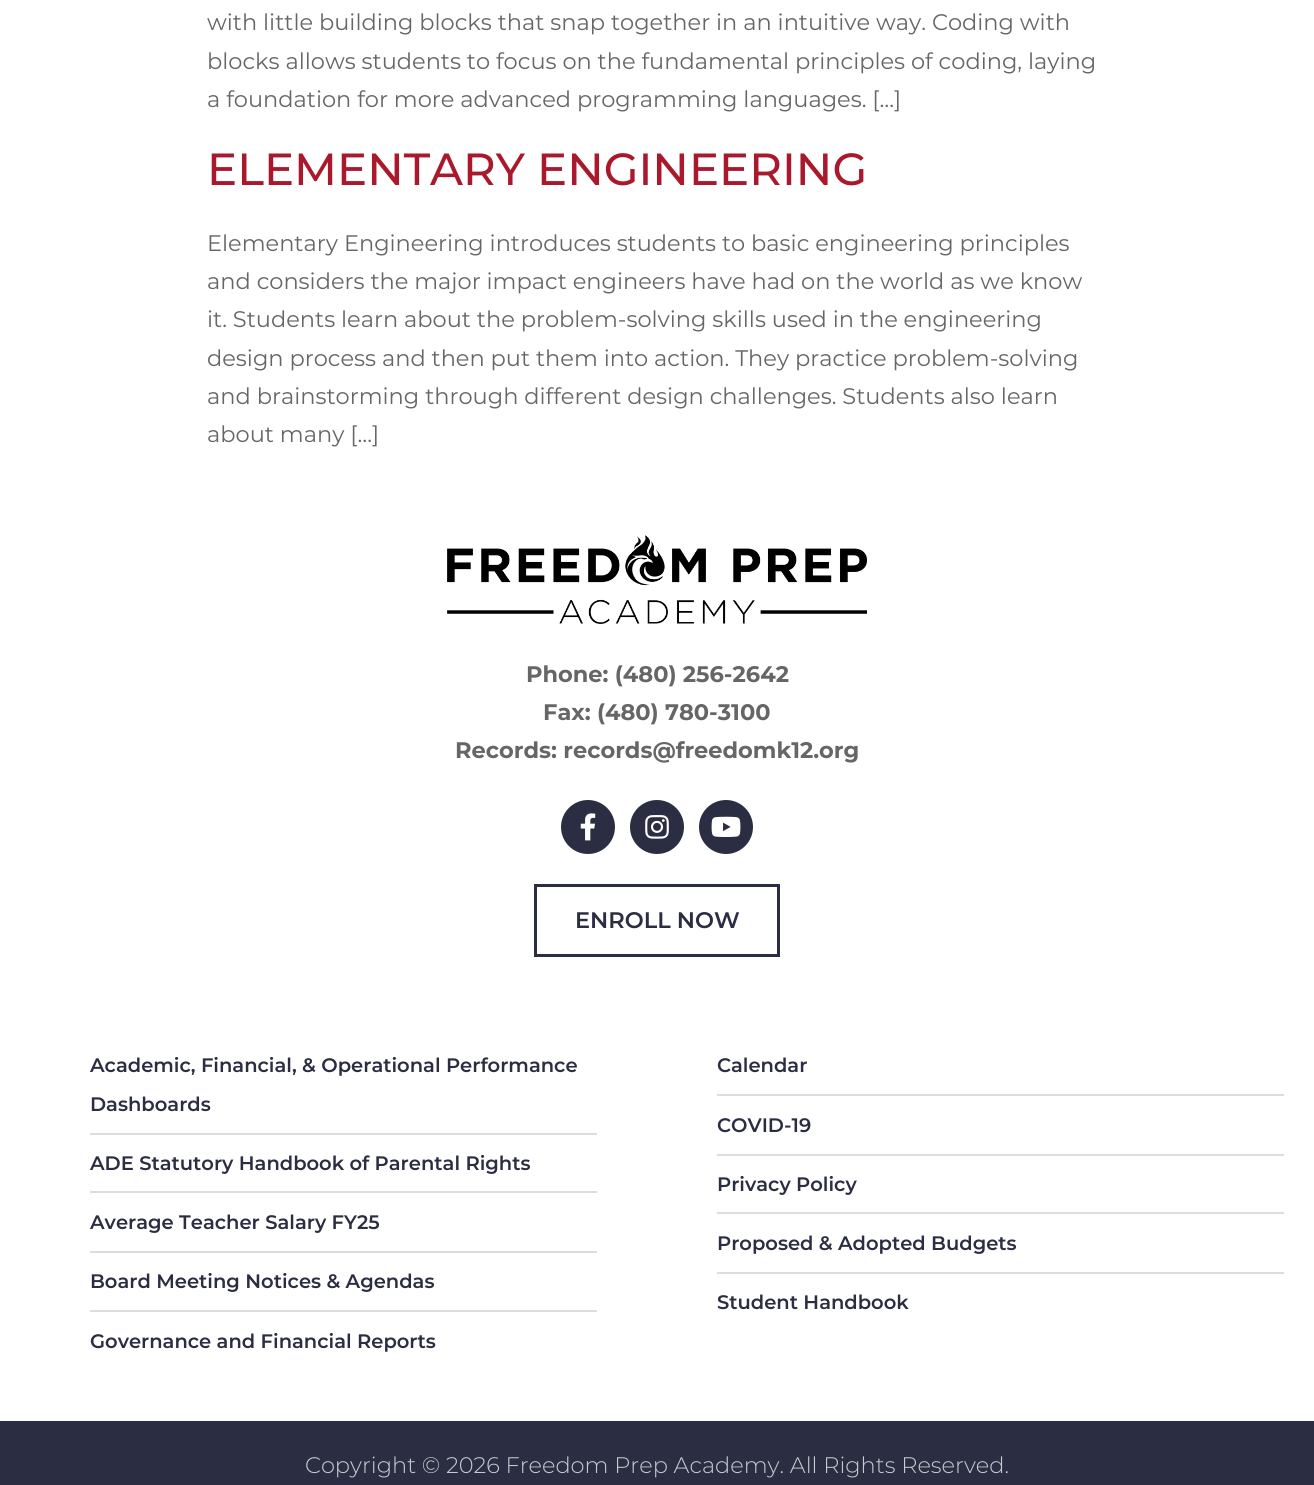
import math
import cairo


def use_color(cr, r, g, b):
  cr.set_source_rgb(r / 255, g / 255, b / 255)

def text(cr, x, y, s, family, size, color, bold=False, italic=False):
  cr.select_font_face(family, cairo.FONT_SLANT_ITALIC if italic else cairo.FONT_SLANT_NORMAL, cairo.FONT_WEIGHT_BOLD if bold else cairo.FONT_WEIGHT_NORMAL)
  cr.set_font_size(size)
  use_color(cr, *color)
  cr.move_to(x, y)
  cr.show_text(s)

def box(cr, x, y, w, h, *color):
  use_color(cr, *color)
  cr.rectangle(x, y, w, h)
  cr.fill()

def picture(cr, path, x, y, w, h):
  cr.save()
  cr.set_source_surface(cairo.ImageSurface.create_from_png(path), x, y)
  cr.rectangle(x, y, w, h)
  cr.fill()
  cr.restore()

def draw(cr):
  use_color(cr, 255, 255, 255)
  cr.paint()
  picture(cr, "img_01.png", 447, 535, 420, 89)
  use_color(cr, 43, 45, 66)
  cr.arc(588, 827, 27, 0, 2 * math.pi)
  cr.fill()
  picture(cr, "img_02.png", 580, 813, 16, 28)
  cr.arc(657, 827, 27, 0, 2 * math.pi)
  cr.fill()
  picture(cr, "img_03.png", 645, 815, 24, 24)
  cr.arc(726, 827, 27, 0, 2 * math.pi)
  cr.fill()
  picture(cr, "img_04.png", 711, 816, 30, 21)
  cr.rectangle(535.5, 885.5, 243, 70)
  cr.set_line_width(3)
  cr.stroke()
  box(cr, 90, 1133, 507, 2, 221, 221, 221)
  box(cr, 90, 1191, 507, 2, 221, 221, 221)
  box(cr, 90, 1251, 507, 2, 221, 221, 221)
  box(cr, 90, 1310, 507, 2, 221, 221, 221)
  box(cr, 717, 1094, 567, 2, 221, 221, 221)
  box(cr, 717, 1154, 567, 2, 221, 221, 221)
  box(cr, 717, 1212, 567, 2, 221, 221, 221)
  box(cr, 717, 1272, 567, 2, 221, 221, 221)
  box(cr, 0, 1421, 1314, 64, 43, 45, 66)
  text(cr, 207, 30, "with little building blocks that snap together in an intuitive way. Coding with", "Montserrat", 22.5, (102, 102, 102))
  text(cr, 207, 69, "blocks allows students to focus on the fundamental principles of coding, laying", "Montserrat", 22.5, (102, 102, 102))
  text(cr, 207, 107, "a foundation for more advanced programming languages. […]", "Montserrat", 22.5, (102, 102, 102))
  text(cr, 207, 185, "ELEMENTARY ENGINEERING", "Montserrat Medium", 45, (170, 24, 44))
  text(cr, 207, 251, "Elementary Engineering introduces students to basic engineering principles", "Montserrat", 22.5, (102, 102, 102))
  text(cr, 207, 289, "and considers the major impact engineers have had on the world as we know", "Montserrat", 22.5, (102, 102, 102))
  text(cr, 207, 327, "it. Students learn about the problem-solving skills used in the engineering", "Montserrat", 22.5, (102, 102, 102))
  text(cr, 207, 366, "design process and then put them into action. They practice problem-solving", "Montserrat", 22.5, (102, 102, 102))
  text(cr, 207, 404, "and brainstorming through different design challenges. Students also learn", "Montserrat", 22.5, (102, 102, 102))
  text(cr, 207, 442, "about many […]", "Montserrat", 22.5, (102, 102, 102))
  text(cr, 526, 682, "Phone: (480) 256-2642", "Montserrat", 22.5, (102, 102, 102), bold=True)
  text(cr, 543, 720, "Fax: (480) 780-3100", "Montserrat", 22.5, (102, 102, 102), bold=True)
  text(cr, 455, 758, "Records: records@freedomk12.org", "Montserrat", 22.5, (102, 102, 102), bold=True)
  text(cr, 575, 928, "ENROLL NOW", "Montserrat SemiBold", 22.5, (43, 45, 66))
  text(cr, 90, 1072, "Academic, Financial, & Operational Performance", "Montserrat SemiBold", 19.5, (43, 45, 66))
  text(cr, 90, 1111, "Dashboards", "Montserrat SemiBold", 19.5, (43, 45, 66))
  text(cr, 90, 1170, "ADE Statutory Handbook of Parental Rights", "Montserrat SemiBold", 19.5, (43, 45, 66))
  text(cr, 90, 1229, "Average Teacher Salary FY25", "Montserrat SemiBold", 19.5, (43, 45, 66))
  text(cr, 90, 1288, "Board Meeting Notices & Agendas", "Montserrat SemiBold", 19.5, (43, 45, 66))
  text(cr, 90, 1348, "Governance and Financial Reports", "Montserrat SemiBold", 19.5, (43, 45, 66))
  text(cr, 717, 1072, "Calendar", "Montserrat SemiBold", 19.5, (43, 45, 66))
  text(cr, 717, 1132, "COVID-19", "Montserrat SemiBold", 19.5, (43, 45, 66))
  text(cr, 717, 1191, "Privacy Policy", "Montserrat SemiBold", 19.5, (43, 45, 66))
  text(cr, 717, 1250, "Proposed & Adopted Budgets", "Montserrat SemiBold", 19.5, (43, 45, 66))
  text(cr, 717, 1309, "Student Handbook", "Montserrat SemiBold", 19.5, (43, 45, 66))
  text(cr, 305, 1473, "Copyright © 2026 Freedom Prep Academy. All Rights Reserved.", "Montserrat Light", 22.5, (202, 203, 208))


surface = cairo.ImageSurface(cairo.FORMAT_RGB24, 1314, 1485)
cr = cairo.Context(surface)
options = cairo.FontOptions()
options.set_hint_metrics(cairo.HINT_METRICS_OFF)
options.set_hint_style(cairo.HINT_STYLE_NONE)
cr.set_font_options(options)
cr.set_miter_limit(4)
draw(cr)
surface.write_to_png("out.png")
